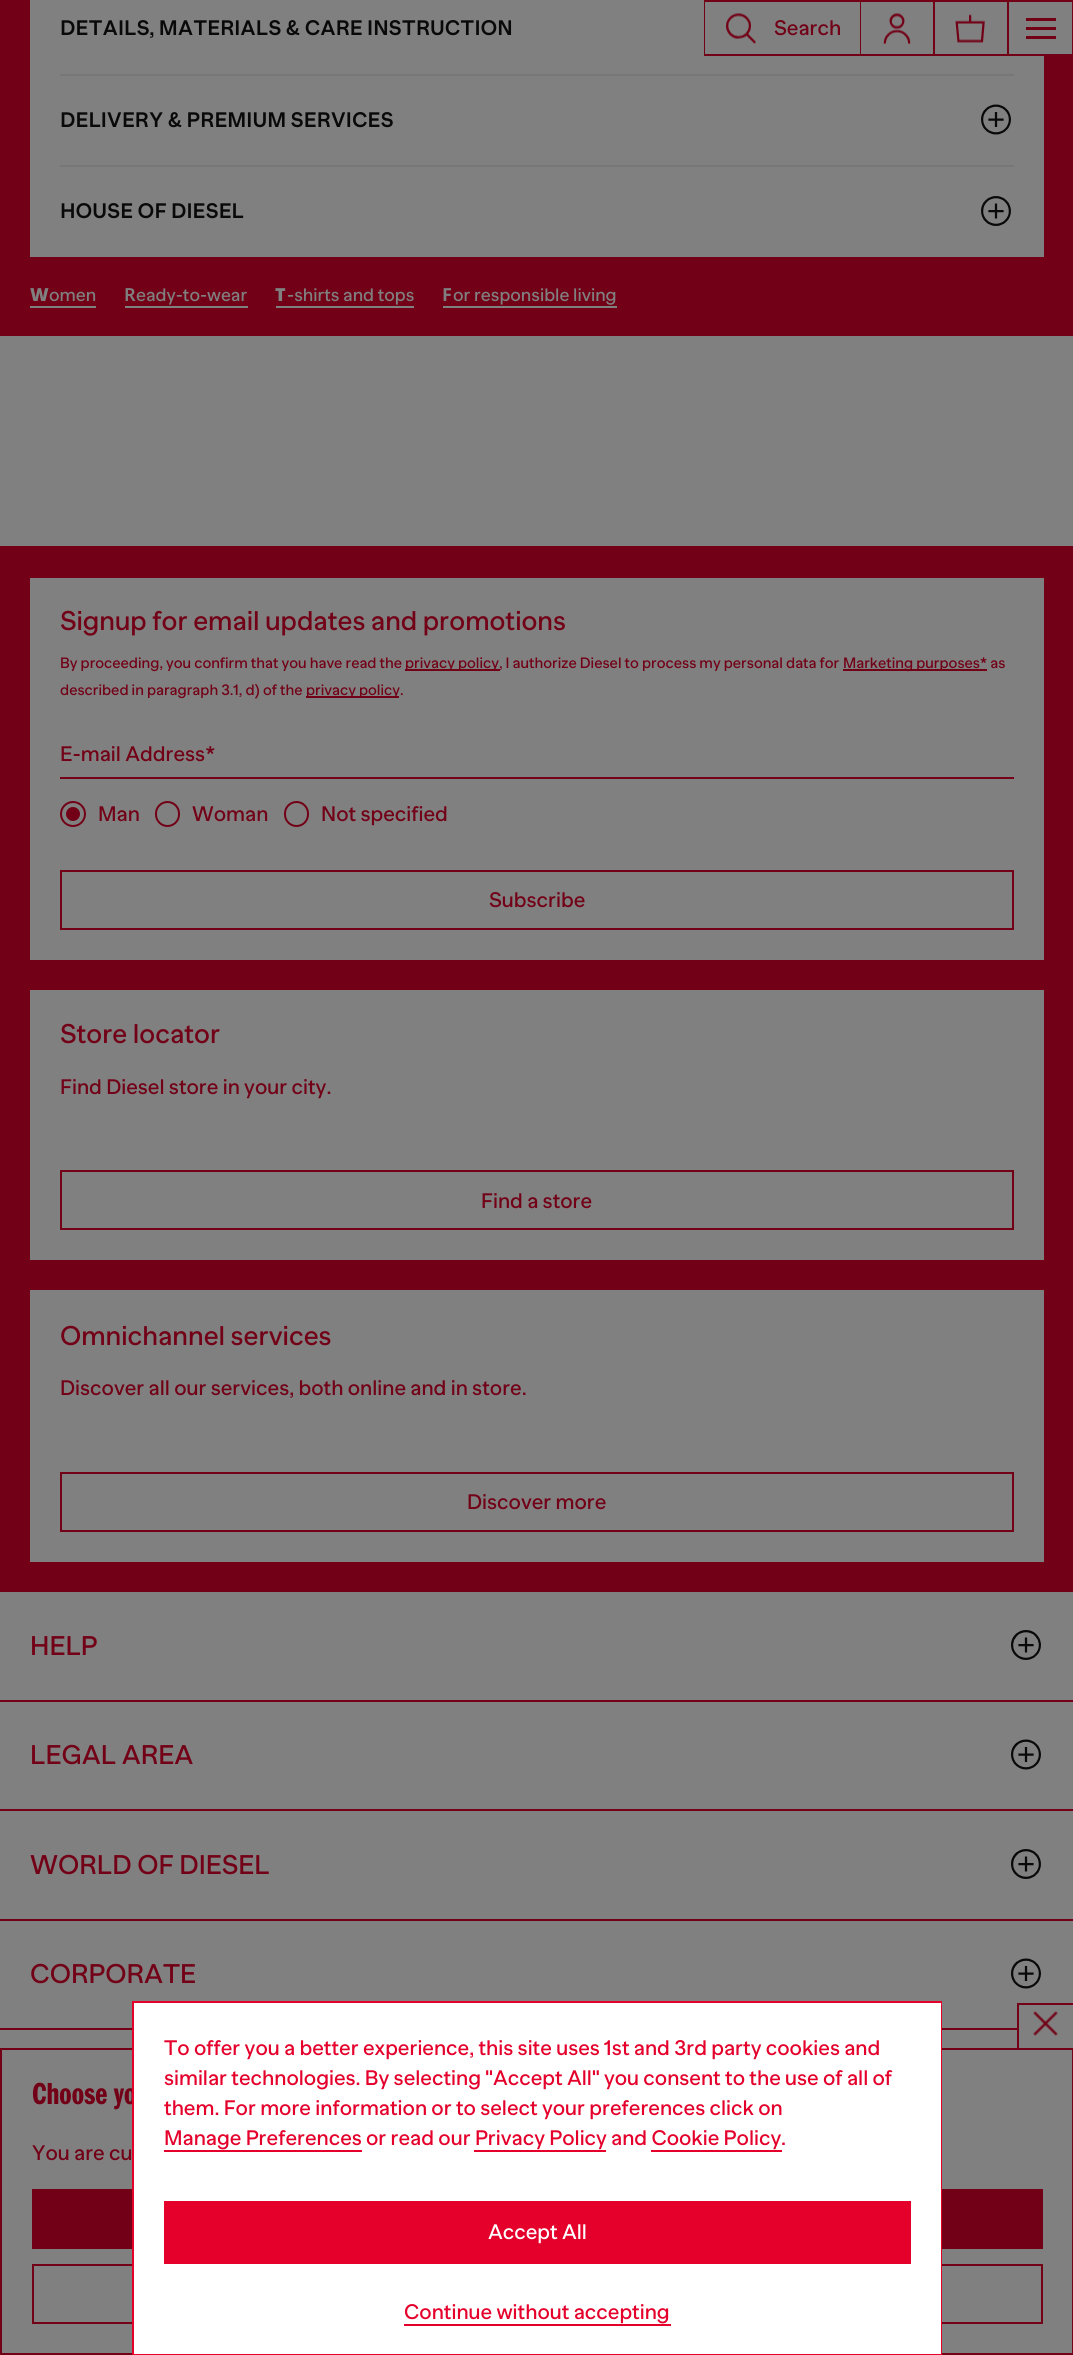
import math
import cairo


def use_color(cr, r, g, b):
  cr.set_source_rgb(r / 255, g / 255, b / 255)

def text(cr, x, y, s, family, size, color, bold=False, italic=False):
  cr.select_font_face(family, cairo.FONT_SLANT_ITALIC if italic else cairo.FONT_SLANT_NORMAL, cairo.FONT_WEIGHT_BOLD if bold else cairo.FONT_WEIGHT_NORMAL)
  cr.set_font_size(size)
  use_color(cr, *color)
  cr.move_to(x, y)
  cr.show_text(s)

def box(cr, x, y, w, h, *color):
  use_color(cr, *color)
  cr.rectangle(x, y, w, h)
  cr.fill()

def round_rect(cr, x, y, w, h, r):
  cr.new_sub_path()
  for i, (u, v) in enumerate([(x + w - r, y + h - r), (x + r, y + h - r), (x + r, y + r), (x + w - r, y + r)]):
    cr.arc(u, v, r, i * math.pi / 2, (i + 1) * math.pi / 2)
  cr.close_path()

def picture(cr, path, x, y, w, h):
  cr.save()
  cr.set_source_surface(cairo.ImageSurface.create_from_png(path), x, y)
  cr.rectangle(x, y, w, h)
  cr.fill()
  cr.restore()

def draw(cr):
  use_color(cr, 128, 128, 128)
  cr.paint()
  box(cr, 0, 0, 1073, 336, 114, 0, 22)
  box(cr, 30, 0, 1014, 257, 128, 128, 128)
  box(cr, 60, 74, 954, 2, 119, 119, 119)
  picture(cr, "img_01.png", 981, 104, 30, 31)
  box(cr, 60, 165, 954, 2, 119, 119, 119)
  picture(cr, "img_02.png", 981, 196, 30, 30)
  box(cr, 30, 306, 66, 2, 128, 128, 128)
  box(cr, 125, 306, 123, 2, 128, 128, 128)
  box(cr, 276, 306, 138, 2, 128, 128, 128)
  box(cr, 443, 306, 174, 2, 128, 128, 128)
  box(cr, 1044, 2, 28, 52, 128, 128, 128)
  box(cr, 704, 0, 1, 56, 114, 0, 22)
  box(cr, 705, 0, 155, 2, 114, 0, 22)
  box(cr, 705, 54, 155, 2, 114, 0, 22)
  picture(cr, "img_03.png", 726, 13, 30, 31)
  box(cr, 860, 0, 1, 56, 114, 0, 22)
  box(cr, 861, 0, 72, 2, 114, 0, 22)
  box(cr, 861, 54, 72, 2, 114, 0, 22)
  picture(cr, "img_04.png", 883, 13, 28, 31)
  box(cr, 933, 0, 2, 56, 114, 0, 22)
  box(cr, 935, 0, 72, 2, 114, 0, 22)
  box(cr, 935, 54, 72, 2, 114, 0, 22)
  picture(cr, "img_05.png", 955, 14, 30, 29)
  cr.rectangle(1008, 1, 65, 54)
  cr.stroke()
  box(cr, 1026, 18, 30, 3, 114, 0, 22)
  box(cr, 1026, 27, 30, 3, 114, 0, 22)
  box(cr, 1026, 36, 30, 3, 114, 0, 22)
  box(cr, 0, 546, 1073, 1046, 114, 0, 22)
  box(cr, 30, 578, 1014, 382, 128, 128, 128)
  box(cr, 405, 669, 95, 2, 114, 0, 22)
  box(cr, 843, 669, 144, 2, 114, 0, 22)
  box(cr, 306, 696, 93, 2, 114, 0, 22)
  box(cr, 60, 777, 954, 2, 114, 0, 22)
  cr.arc(73, 814, 12, 0, 2 * math.pi)
  cr.stroke()
  cr.arc(73, 814, 7, 0, 2 * math.pi)
  cr.fill()
  round_rect(cr, 156, 802, 23, 24, 11.5)
  cr.stroke()
  round_rect(cr, 285, 802, 23, 24, 11.5)
  cr.stroke()
  cr.rectangle(61, 871, 952, 58)
  cr.stroke()
  box(cr, 30, 990, 1014, 270, 128, 128, 128)
  cr.rectangle(61, 1171, 952, 58)
  use_color(cr, 114, 0, 22)
  cr.stroke()
  box(cr, 30, 1290, 1014, 272, 128, 128, 128)
  cr.rectangle(61, 1473, 952, 58)
  use_color(cr, 114, 0, 22)
  cr.stroke()
  box(cr, 0, 1700, 1073, 2, 114, 0, 22)
  picture(cr, "img_06.png", 1011, 1630, 30, 30)
  box(cr, 0, 1809, 1073, 2, 114, 0, 22)
  picture(cr, "img_07.png", 1011, 1739, 30, 31)
  box(cr, 0, 1919, 1073, 2, 114, 0, 22)
  picture(cr, "img_08.png", 1011, 1849, 30, 30)
  box(cr, 0, 2028, 1017, 2, 114, 0, 22)
  picture(cr, "img_07.png", 1011, 1958, 30, 31)
  box(cr, 1017, 2003, 56, 2, 114, 0, 22)
  box(cr, 1017, 2003, 2, 45, 114, 0, 22)
  picture(cr, "img_09.png", 1033, 2011, 25, 25)
  cr.rectangle(1, 2049, 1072, 305)
  cr.stroke()
  box(cr, 32, 2189, 1011, 60, 114, 0, 22)
  cr.rectangle(33, 2265, 1009, 58)
  cr.stroke()
  text(cr, 60, 35, "DETAILS, MATERIALS & CARE INSTRUCTION", "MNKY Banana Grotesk", 21, (9, 9, 9), bold=True)
  text(cr, 60, 127, "DELIVERY & PREMIUM SERVICES", "MNKY Banana Grotesk", 21, (9, 9, 9), bold=True)
  text(cr, 60, 218, "HOUSE OF DIESEL", "MNKY Banana Grotesk", 21, (9, 9, 9), bold=True)
  text(cr, 30, 301, "W", "Noto Sans Black", 18, (128, 128, 128))
  text(cr, 49, 301, "omen", "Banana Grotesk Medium", 18, (128, 128, 128))
  text(cr, 124, 301, "R", "Noto Sans SemiBold", 18, (128, 128, 128))
  text(cr, 136, 301, "eady-to-wear", "Banana Grotesk Medium", 18, (128, 128, 128))
  text(cr, 275, 301, "T", "Noto Sans Black", 18, (128, 128, 128))
  text(cr, 287, 301, "-shirts and tops", "Banana Grotesk Medium", 18, (128, 128, 128))
  text(cr, 442, 301, "F", "Noto Sans", 18, (128, 128, 128), bold=True)
  text(cr, 453, 301, "or responsible living", "Banana Grotesk Medium", 18, (128, 128, 128))
  text(cr, 774, 35, "Search", "Banana Grotesk Medium", 21, (114, 0, 22))
  text(cr, 60, 630, "Signup for email updates and promotions", "Banana Grotesk Medium", 27, (114, 0, 22))
  text(cr, 60, 668, "By proceeding, you confirm that you have read the", "Banana Grotesk Medium", 15, (114, 0, 22))
  text(cr, 405, 668, "privacy policy, I authorize Diesel to process my personal data for", "Banana Grotesk Medium", 15, (114, 0, 22))
  text(cr, 843, 668, "Marketing purposes* as", "Banana Grotesk Medium", 15, (114, 0, 22))
  text(cr, 60, 695, "described in paragraph 3.1, d) of the", "Banana Grotesk Medium", 15, (114, 0, 22))
  text(cr, 306, 695, "privacy policy.", "Banana Grotesk Medium", 15, (114, 0, 22))
  text(cr, 60, 761, "E-mail Address*", "Banana Grotesk Medium", 21, (114, 0, 22))
  text(cr, 98, 821, "Man", "Banana Grotesk Medium", 21, (114, 0, 22))
  text(cr, 192, 821, "Woman", "Banana Grotesk Medium", 21, (114, 0, 22))
  text(cr, 321, 821, "Not specified", "Banana Grotesk Medium", 21, (114, 0, 22))
  text(cr, 489, 907, "Subscribe", "Banana Grotesk Medium", 21, (114, 0, 22))
  text(cr, 60, 1043, "Store locator", "Banana Grotesk Medium", 27, (114, 0, 22))
  text(cr, 60, 1094, "Find Diesel store in your city.", "Banana Grotesk Medium", 21, (114, 0, 22))
  text(cr, 481, 1208, "Find a store", "Banana Grotesk Medium", 21, (114, 0, 22))
  text(cr, 60, 1345, "Omnichannel services", "Banana Grotesk Medium", 27, (114, 0, 22))
  text(cr, 60, 1395, "Discover all our services, both online and in store.", "Banana Grotesk Medium", 21, (114, 0, 22))
  text(cr, 467, 1509, "Discover more", "Banana Grotesk Medium", 21, (114, 0, 22))
  text(cr, 30, 1655, "HELP", "Banana Grotesk Medium", 27, (114, 0, 22))
  text(cr, 30, 1764, "LEGAL AREA", "Banana Grotesk Medium", 27, (114, 0, 22))
  text(cr, 30, 1874, "WORLD OF DIESEL", "Banana Grotesk Medium", 27, (114, 0, 22))
  text(cr, 30, 1983, "CORPORATE", "Banana Grotesk Medium", 27, (114, 0, 22))
  text(cr, 32, 2104, "Choose yo", "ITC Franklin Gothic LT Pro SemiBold", 31.5, (114, 0, 22))
  text(cr, 32, 2160, "You are cu", "Banana Grotesk Medium", 21, (114, 0, 22))
  cr.rectangle(133, 2002, 808, 352)
  use_color(cr, 228, 0, 43)
  cr.stroke()
  box(cr, 134, 2003, 807, 351, 255, 255, 255)
  text(cr, 164, 2055, "To offer you a better experience, this site uses 1st and 3rd party cookies and", "Banana Grotesk Medium", 21, (228, 0, 43))
  text(cr, 164, 2085, "similar technologies. By selecting \"Accept All\" you consent to the use of all of", "Banana Grotesk Medium", 21, (228, 0, 43))
  text(cr, 164, 2115, "them. For more information or to select your preferences click on", "Banana Grotesk Medium", 21, (228, 0, 43))
  text(cr, 164, 2145, "Manage Preferences", "Banana Grotesk Medium", 21, (228, 0, 43))
  box(cr, 164, 2150, 198, 2, 228, 0, 43)
  text(cr, 366, 2145, "or read our Privacy Policy", "Banana Grotesk Medium", 21, (228, 0, 43))
  text(cr, 611, 2145, "and Cookie Policy", "Banana Grotesk Medium", 21, (228, 0, 43))
  text(cr, 781, 2145, ".", "Banana Grotesk Medium", 21, (228, 0, 43))
  box(cr, 474, 2150, 132, 2, 228, 0, 43)
  box(cr, 651, 2150, 131, 2, 228, 0, 43)
  box(cr, 164, 2201, 747, 63, 228, 0, 43)
  text(cr, 488, 2239, "Accept All", "Banana Grotesk Medium", 21, (255, 255, 255))
  text(cr, 404, 2319, "Continue without accepting", "Banana Grotesk Medium", 21, (228, 0, 43))
  box(cr, 404, 2324, 267, 2, 228, 0, 43)


surface = cairo.ImageSurface(cairo.FORMAT_RGB24, 1073, 2355)
cr = cairo.Context(surface)
options = cairo.FontOptions()
options.set_hint_metrics(cairo.HINT_METRICS_OFF)
options.set_hint_style(cairo.HINT_STYLE_NONE)
cr.set_font_options(options)
cr.set_miter_limit(4)
draw(cr)
surface.write_to_png("out.png")
